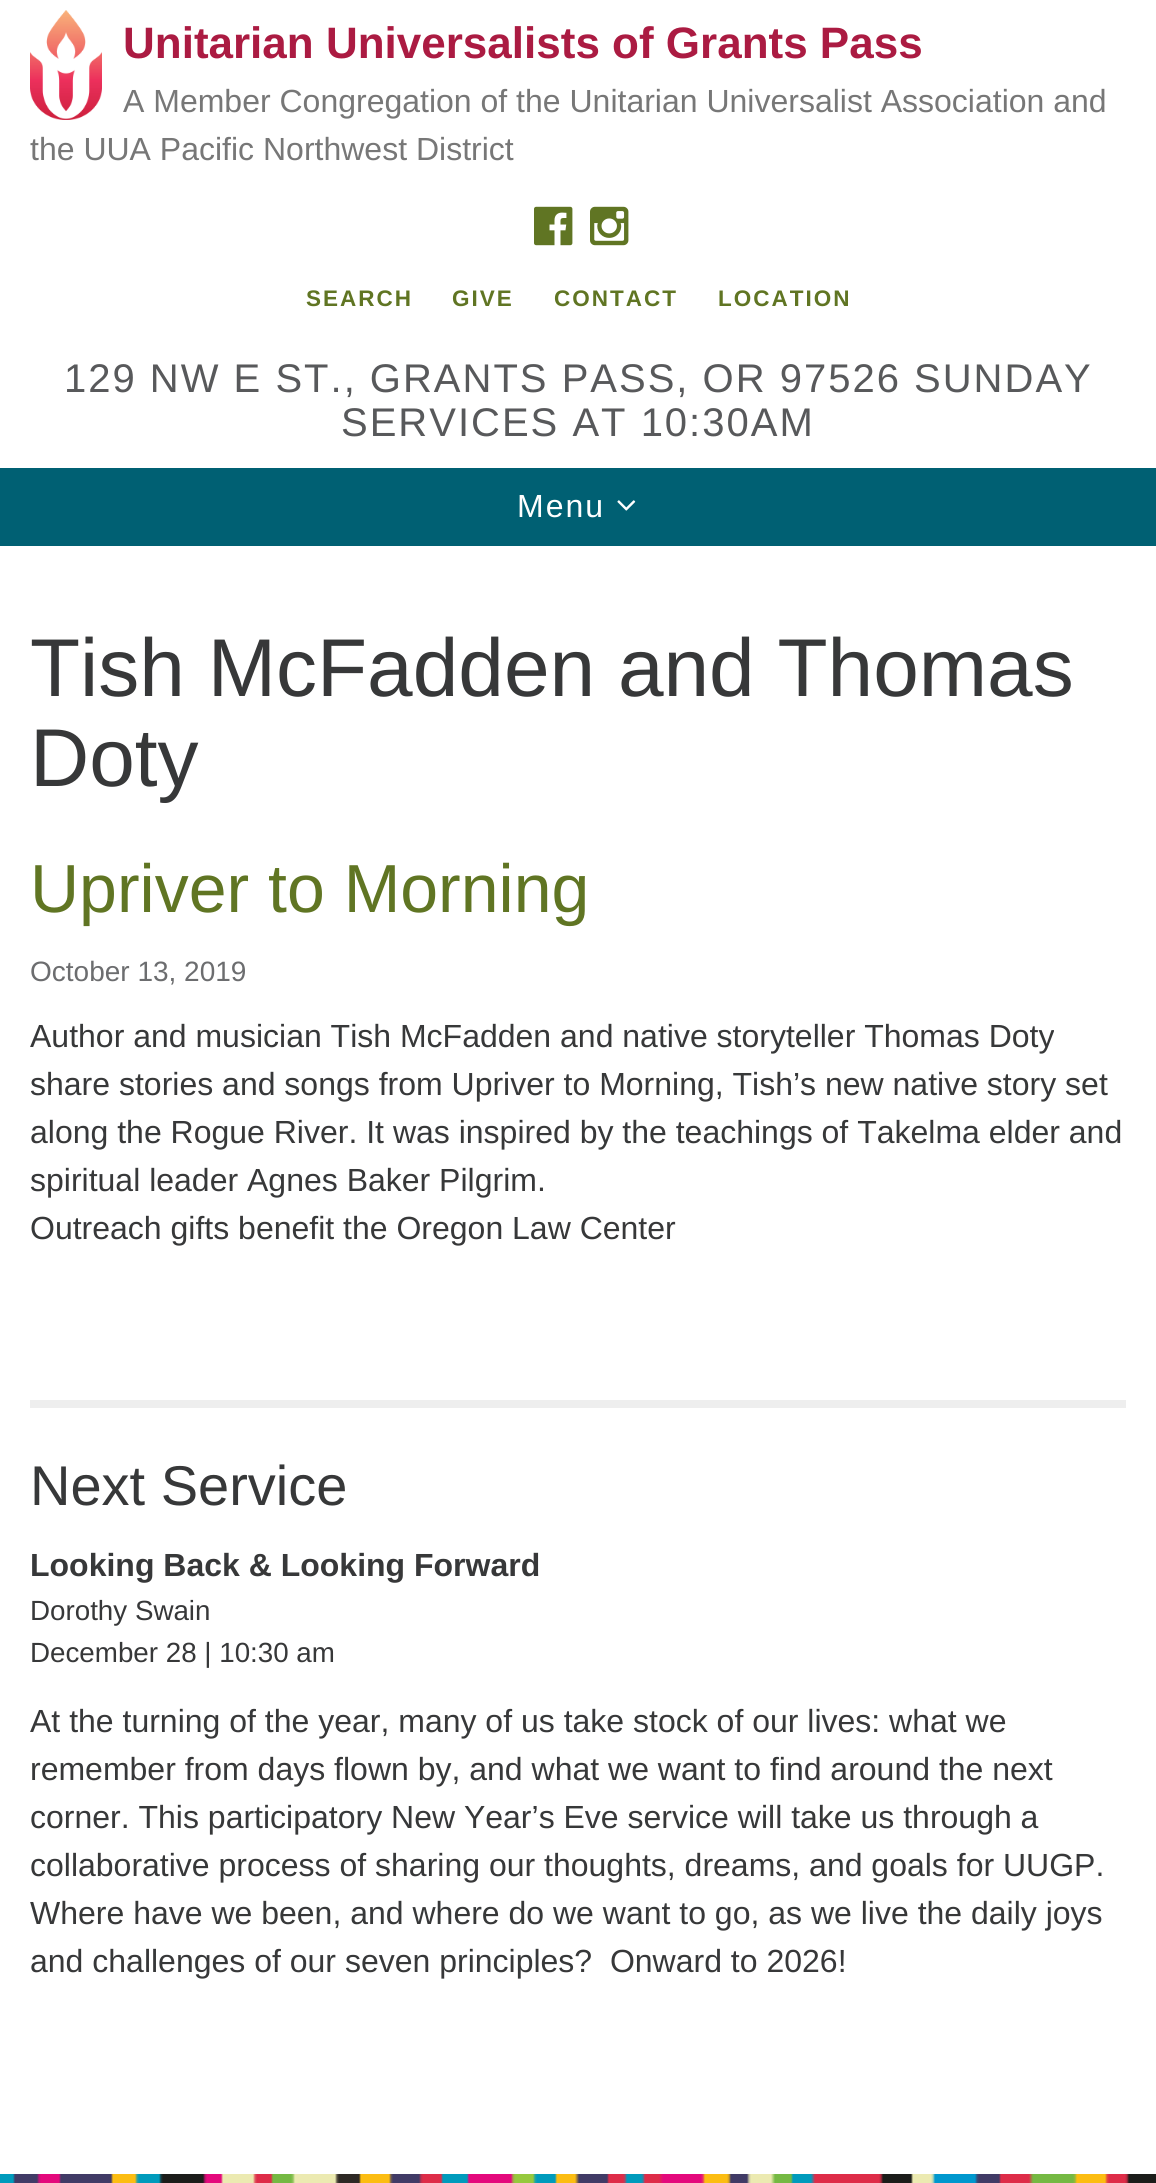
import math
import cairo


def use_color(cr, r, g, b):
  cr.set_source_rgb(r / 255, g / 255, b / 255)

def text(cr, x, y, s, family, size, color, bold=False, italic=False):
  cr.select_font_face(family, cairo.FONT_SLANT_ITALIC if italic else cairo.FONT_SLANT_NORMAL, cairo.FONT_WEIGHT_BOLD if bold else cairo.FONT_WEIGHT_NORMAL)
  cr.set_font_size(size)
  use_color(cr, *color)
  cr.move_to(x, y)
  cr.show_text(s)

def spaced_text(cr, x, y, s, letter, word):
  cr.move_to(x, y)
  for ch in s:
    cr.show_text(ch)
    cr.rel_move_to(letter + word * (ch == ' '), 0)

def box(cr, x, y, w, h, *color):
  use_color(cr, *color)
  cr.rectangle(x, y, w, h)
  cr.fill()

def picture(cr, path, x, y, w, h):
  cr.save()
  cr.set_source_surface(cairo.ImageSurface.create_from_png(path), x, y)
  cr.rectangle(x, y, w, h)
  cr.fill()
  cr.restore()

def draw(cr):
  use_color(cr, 255, 255, 255)
  cr.paint()
  picture(cr, "img_01.png", 30, 10, 72, 110)
  picture(cr, "img_02.png", 534, 206, 39, 40)
  picture(cr, "img_03.png", 590, 206, 39, 40)
  box(cr, 0, 468, 1156, 78, 0, 96, 115)
  picture(cr, "img_04.png", 617, 500, 19, 11)
  box(cr, 30, 1400, 1096, 8, 238, 238, 238)
  picture(cr, "img_05.png", 0, 2174, 1156, 9)
  text(cr, 123, 58, "Unitarian Universalists of Grants Pass", "Liberation Sans", 44, (171, 27, 66), bold=True)
  text(cr, 123, 112, "A Member Congregation of the Unitarian Universalist Association and", "Liberation Sans", 32, (119, 119, 119))
  text(cr, 30, 160, "the UUA Pacific Northwest District", "Liberation Sans", 32, (119, 119, 119))
  cr.select_font_face("Liberation Sans", cairo.FONT_SLANT_NORMAL, cairo.FONT_WEIGHT_BOLD)
  cr.set_font_size(22.5)
  use_color(cr, 96, 117, 35)
  spaced_text(cr, 306, 306, "SEARCH", 2, 0)
  spaced_text(cr, 452, 306, "GIVE", 2, 0)
  spaced_text(cr, 554, 306, "CONTACT", 2, 0)
  spaced_text(cr, 718, 306, "LOCATION", 2, 0)
  cr.select_font_face("Liberation Sans")
  cr.set_font_size(40)
  use_color(cr, 88, 89, 91)
  spaced_text(cr, 64, 392, "129 NW E ST., GRANTS PASS, OR 97526 SUNDAY", 2, 0)
  spaced_text(cr, 341, 436, "SERVICES AT 10:30AM", 2, 0)
  cr.set_font_size(32)
  use_color(cr, 255, 255, 255)
  spaced_text(cr, 517, 517, "Menu", 2, 0)
  text(cr, 30, 696, "Tish McFadden and Thomas", "Liberation Sans", 82, (55, 56, 57))
  text(cr, 30, 786, "Doty", "Liberation Sans", 82, (55, 56, 57))
  text(cr, 30, 912, "Upriver to Morning", "Liberation Sans", 68, (96, 117, 35))
  text(cr, 30, 981, "October 13, 2019", "Liberation Sans", 28, (108, 109, 111))
  text(cr, 30, 1047, "Author and musician Tish McFadden and native storyteller Thomas Doty", "Liberation Sans", 32, (55, 56, 57))
  text(cr, 30, 1095, "share stories and songs from Upriver to Morning, Tish’s new native story set", "Liberation Sans", 32, (55, 56, 57))
  text(cr, 30, 1143, "along the Rogue River. It was inspired by the teachings of Takelma elder and", "Liberation Sans", 32, (55, 56, 57))
  text(cr, 30, 1191, "spiritual leader Agnes Baker Pilgrim.", "Liberation Sans", 32, (55, 56, 57))
  text(cr, 30, 1239, "Outreach gifts benefit the Oregon Law Center", "Liberation Sans", 32, (55, 56, 57))
  text(cr, 30, 1505, "Next Service", "Liberation Sans", 56, (55, 56, 57))
  text(cr, 30, 1576, "Looking Back & Looking Forward", "Liberation Sans", 32, (55, 56, 57), bold=True)
  text(cr, 30, 1620, "Dorothy Swain", "Liberation Sans", 27.75, (55, 56, 57))
  text(cr, 30, 1662, "December 28 | 10:30 am", "Liberation Sans", 27.75, (55, 56, 57))
  text(cr, 30, 1732, "At the turning of the year, many of us take stock of our lives: what we", "Liberation Sans", 32, (55, 56, 57))
  text(cr, 30, 1780, "remember from days flown by, and what we want to find around the next", "Liberation Sans", 32, (55, 56, 57))
  text(cr, 30, 1828, "corner. This participatory New Year’s Eve service will take us through a", "Liberation Sans", 32, (55, 56, 57))
  text(cr, 30, 1876, "collaborative process of sharing our thoughts, dreams, and goals for UUGP.", "Liberation Sans", 32, (55, 56, 57))
  text(cr, 30, 1924, "Where have we been, and where do we want to go, as we live the daily joys", "Liberation Sans", 32, (55, 56, 57))
  text(cr, 30, 1972, "and challenges of our seven principles?  Onward to 2026!", "Liberation Sans", 32, (55, 56, 57))


surface = cairo.ImageSurface(cairo.FORMAT_RGB24, 1156, 2183)
cr = cairo.Context(surface)
options = cairo.FontOptions()
options.set_hint_metrics(cairo.HINT_METRICS_OFF)
options.set_hint_style(cairo.HINT_STYLE_NONE)
cr.set_font_options(options)
cr.set_miter_limit(4)
draw(cr)
surface.write_to_png("out.png")
